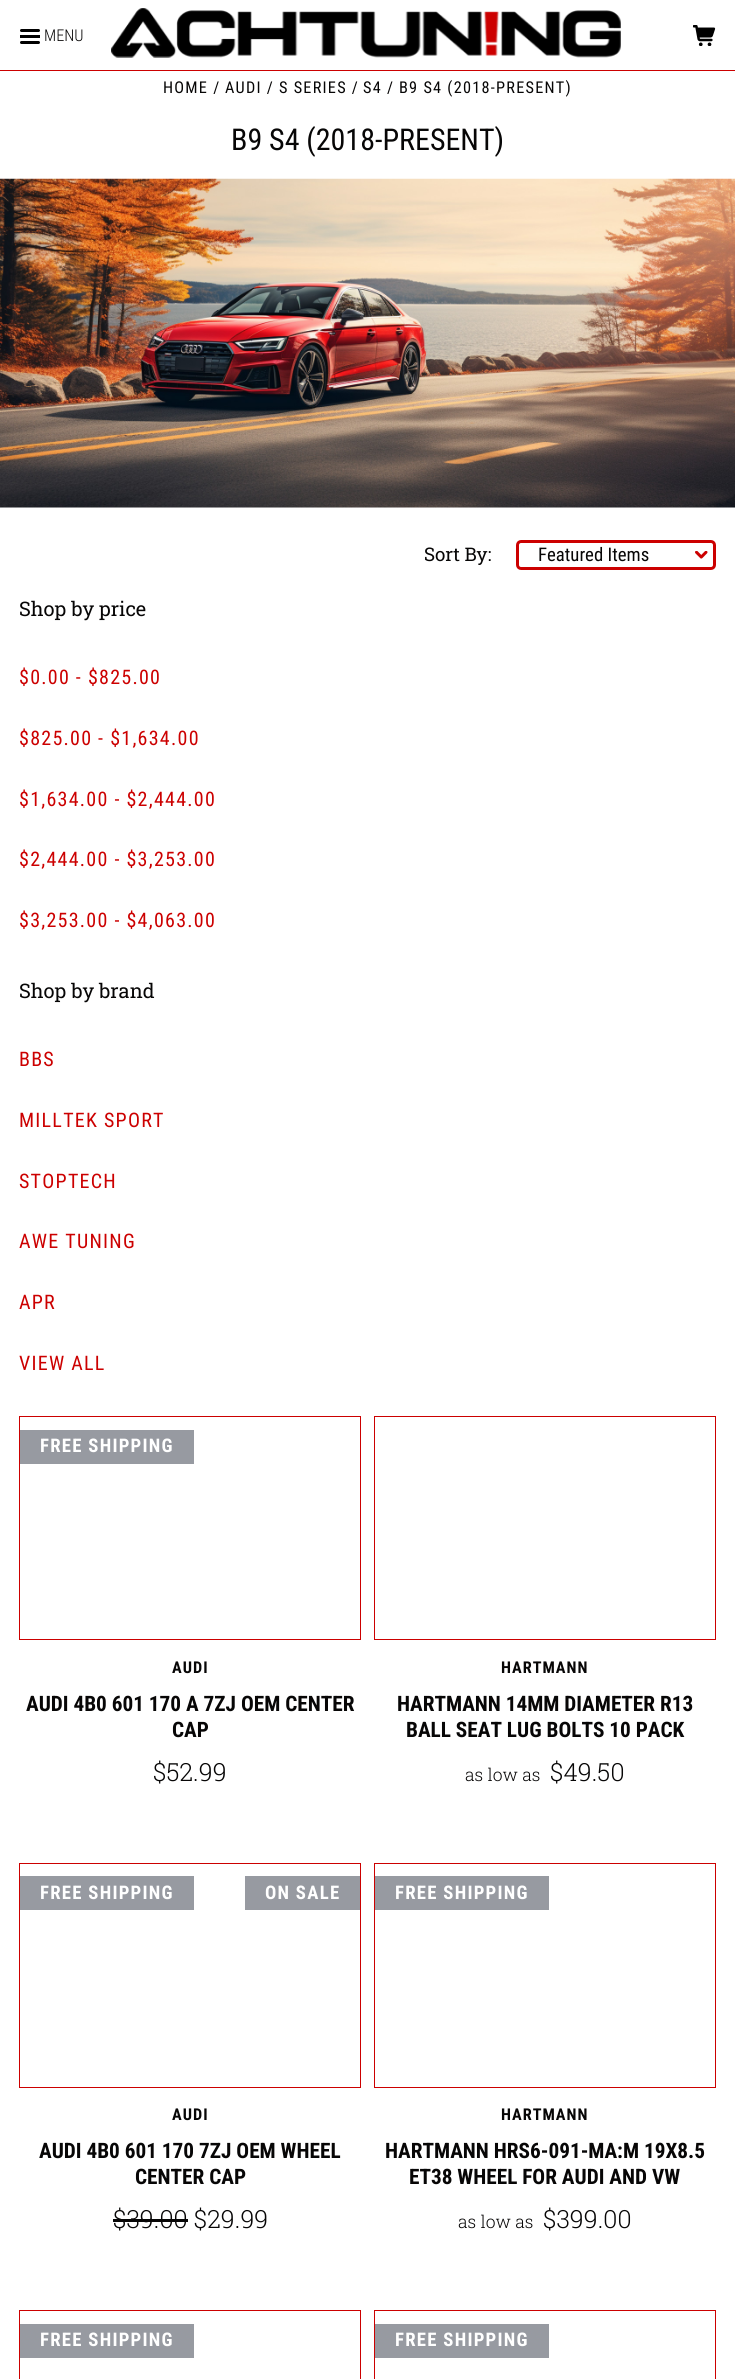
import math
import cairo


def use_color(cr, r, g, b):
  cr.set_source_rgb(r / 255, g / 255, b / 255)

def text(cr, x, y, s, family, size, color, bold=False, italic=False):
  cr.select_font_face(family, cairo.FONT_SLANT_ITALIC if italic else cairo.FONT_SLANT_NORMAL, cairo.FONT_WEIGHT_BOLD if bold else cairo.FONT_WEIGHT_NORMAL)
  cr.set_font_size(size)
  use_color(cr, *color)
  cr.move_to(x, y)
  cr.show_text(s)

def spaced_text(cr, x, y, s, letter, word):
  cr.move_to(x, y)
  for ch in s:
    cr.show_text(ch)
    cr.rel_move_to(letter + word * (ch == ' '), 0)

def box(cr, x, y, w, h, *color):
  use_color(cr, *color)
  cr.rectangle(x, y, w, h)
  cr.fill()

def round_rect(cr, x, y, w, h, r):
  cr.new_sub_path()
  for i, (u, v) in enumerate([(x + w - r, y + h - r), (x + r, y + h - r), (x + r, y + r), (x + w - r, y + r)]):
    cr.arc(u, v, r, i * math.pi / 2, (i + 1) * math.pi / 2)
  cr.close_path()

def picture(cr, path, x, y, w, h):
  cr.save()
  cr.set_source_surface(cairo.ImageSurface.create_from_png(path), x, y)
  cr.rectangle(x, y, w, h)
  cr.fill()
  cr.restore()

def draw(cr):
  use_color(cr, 255, 255, 255)
  cr.paint()
  box(cr, 0, 70, 735, 1, 204, 0, 0)
  box(cr, 20, 35, 20, 3, 0, 0, 0)
  round_rect(cr, 20, 29, 20, 3, 1.5)
  cr.fill()
  round_rect(cr, 20, 41, 20, 3, 1.5)
  cr.fill()
  picture(cr, "img_01.png", 111, 8, 510, 50)
  picture(cr, "img_02.png", 693, 25, 23, 21)
  picture(cr, "img_03.png", 0, 178, 735, 330)
  round_rect(cr, 517.5, 541.5, 197, 27, 3.5)
  use_color(cr, 204, 0, 0)
  cr.set_line_width(3)
  cr.stroke()
  picture(cr, "img_04.png", 695, 551, 13, 8)
  cr.rectangle(19.5, 1416.5, 341, 223)
  cr.set_line_width(1)
  cr.stroke()
  box(cr, 20, 1430, 174, 34, 151, 154, 161)
  cr.rectangle(374.5, 1416.5, 341, 223)
  use_color(cr, 204, 0, 0)
  cr.stroke()
  cr.rectangle(19.5, 1863.5, 341, 224)
  cr.stroke()
  box(cr, 20, 1876, 174, 34, 151, 154, 161)
  box(cr, 245, 1876, 115, 34, 151, 154, 161)
  box(cr, 113, 2219, 75, 3, 7, 6, 6)
  cr.rectangle(374.5, 1863.5, 341, 224)
  use_color(cr, 204, 0, 0)
  cr.stroke()
  box(cr, 375, 1876, 174, 34, 151, 154, 161)
  cr.rectangle(19.5, 2310.5, 341, 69)
  use_color(cr, 204, 0, 0)
  cr.stroke()
  box(cr, 20, 2324, 174, 34, 151, 154, 161)
  cr.rectangle(374.5, 2310.5, 341, 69)
  use_color(cr, 204, 0, 0)
  cr.stroke()
  box(cr, 375, 2324, 174, 34, 151, 154, 161)
  text(cr, 44, 41, "MENU", "Roboto Condensed Light", 16.25, (7, 6, 6))
  cr.select_font_face("Roboto Condensed")
  spaced_text(cr, 163, 93, "HOME /", 1.25, 0)
  spaced_text(cr, 225, 93, "AUDI /", 1.25, 0)
  spaced_text(cr, 279, 93, "S SERIES /", 1.25, 0)
  spaced_text(cr, 363, 93, "S4 /", 1.25, 0)
  spaced_text(cr, 399, 93, "B9 S4 (2018-PRESENT)", 1.25, 0)
  text(cr, 231, 150, "B9 S4 (2018-PRESENT)", "Roboto Condensed", 30, (7, 6, 6))
  text(cr, 424, 561, "Sort By:", "Roboto Slab", 18.75, (7, 6, 6))
  text(cr, 538, 561, "Featured Items", "Roboto Condensed", 18.75, (7, 6, 6))
  text(cr, 19, 616, "Shop by price", "Roboto Slab", 20, (7, 6, 6))
  cr.select_font_face("Roboto Condensed")
  use_color(cr, 204, 0, 0)
  spaced_text(cr, 19, 684, "$0.00 - $825.00", 1.25, 0)
  spaced_text(cr, 19, 745, "$825.00 - $1,634.00", 1.25, 0)
  spaced_text(cr, 19, 806, "$1,634.00 - $2,444.00", 1.25, 0)
  spaced_text(cr, 19, 866, "$2,444.00 - $3,253.00", 1.25, 0)
  spaced_text(cr, 19, 927, "$3,253.00 - $4,063.00", 1.25, 0)
  text(cr, 19, 998, "Shop by brand", "Roboto Slab", 20, (7, 6, 6))
  cr.select_font_face("Roboto Condensed")
  use_color(cr, 204, 0, 0)
  spaced_text(cr, 19, 1066, "BBS", 1.25, 0)
  spaced_text(cr, 19, 1127, "MILLTEK SPORT", 1.25, 0)
  spaced_text(cr, 19, 1188, "STOPTECH", 1.25, 0)
  spaced_text(cr, 19, 1248, "AWE TUNING", 1.25, 0)
  spaced_text(cr, 19, 1309, "APR", 1.25, 0)
  spaced_text(cr, 19, 1370, "VIEW ALL", 1.25, 0)
  cr.select_font_face("Roboto Condensed", cairo.FONT_SLANT_NORMAL, cairo.FONT_WEIGHT_BOLD)
  cr.set_font_size(18.75)
  use_color(cr, 255, 255, 255)
  spaced_text(cr, 40, 1452, "FREE SHIPPING", 1.25, 0)
  cr.set_font_size(16.25)
  use_color(cr, 7, 6, 6)
  spaced_text(cr, 172, 1673, "AUDI", 1, 0)
  text(cr, 26, 1711, "AUDI 4B0 601 170 A 7ZJ OEM CENTER", "Roboto Condensed", 21.25, (7, 6, 6), bold=True)
  text(cr, 172, 1737, "CAP", "Roboto Condensed", 21.25, (7, 6, 6), bold=True)
  text(cr, 153, 1781, "$52.99", "Roboto Slab Light", 25, (7, 6, 6))
  cr.select_font_face("Roboto Condensed", cairo.FONT_SLANT_NORMAL, cairo.FONT_WEIGHT_BOLD)
  cr.set_font_size(16.25)
  spaced_text(cr, 501, 1673, "HARTMANN", 1, 0)
  text(cr, 397, 1711, "HARTMANN 14MM DIAMETER R13", "Roboto Condensed", 21.25, (7, 6, 6), bold=True)
  text(cr, 406, 1737, "BALL SEAT LUG BOLTS 10 PACK", "Roboto Condensed", 21.25, (7, 6, 6), bold=True)
  text(cr, 465, 1781, "as low as", "Roboto Slab Light", 17.5, (7, 6, 6))
  text(cr, 550, 1781, "$49.50", "Roboto Slab Light", 25, (7, 6, 6))
  cr.select_font_face("Roboto Condensed", cairo.FONT_SLANT_NORMAL, cairo.FONT_WEIGHT_BOLD)
  cr.set_font_size(18.75)
  use_color(cr, 255, 255, 255)
  spaced_text(cr, 40, 1899, "FREE SHIPPING", 1.25, 0)
  spaced_text(cr, 265, 1899, "ON SALE", 1.25, 0)
  cr.set_font_size(16.25)
  use_color(cr, 7, 6, 6)
  spaced_text(cr, 172, 2120, "AUDI", 1, 0)
  text(cr, 39, 2158, "AUDI 4B0 601 170 7ZJ OEM WHEEL", "Roboto Condensed", 21.25, (7, 6, 6), bold=True)
  text(cr, 135, 2184, "CENTER CAP", "Roboto Condensed", 21.25, (7, 6, 6), bold=True)
  text(cr, 113, 2228, "$39.00 $29.99", "Roboto Slab Light", 25, (7, 6, 6))
  cr.select_font_face("Roboto Condensed", cairo.FONT_SLANT_NORMAL, cairo.FONT_WEIGHT_BOLD)
  cr.set_font_size(18.75)
  use_color(cr, 255, 255, 255)
  spaced_text(cr, 395, 1899, "FREE SHIPPING", 1.25, 0)
  cr.set_font_size(16.25)
  use_color(cr, 7, 6, 6)
  spaced_text(cr, 501, 2120, "HARTMANN", 1, 0)
  text(cr, 385, 2158, "HARTMANN HRS6-091-MA:M 19X8.5", "Roboto Condensed", 21.25, (7, 6, 6), bold=True)
  text(cr, 409, 2184, "ET38 WHEEL FOR AUDI AND VW", "Roboto Condensed", 21.25, (7, 6, 6), bold=True)
  text(cr, 458, 2228, "as low as", "Roboto Slab Light", 17.5, (7, 6, 6))
  text(cr, 543, 2228, "$399.00", "Roboto Slab Light", 25, (7, 6, 6))
  cr.select_font_face("Roboto Condensed", cairo.FONT_SLANT_NORMAL, cairo.FONT_WEIGHT_BOLD)
  cr.set_font_size(18.75)
  use_color(cr, 255, 255, 255)
  spaced_text(cr, 40, 2346, "FREE SHIPPING", 1.25, 0)
  spaced_text(cr, 395, 2346, "FREE SHIPPING", 1.25, 0)


surface = cairo.ImageSurface(cairo.FORMAT_RGB24, 735, 2379)
cr = cairo.Context(surface)
options = cairo.FontOptions()
options.set_hint_metrics(cairo.HINT_METRICS_OFF)
options.set_hint_style(cairo.HINT_STYLE_NONE)
cr.set_font_options(options)
cr.set_miter_limit(4)
draw(cr)
surface.write_to_png("out.png")
